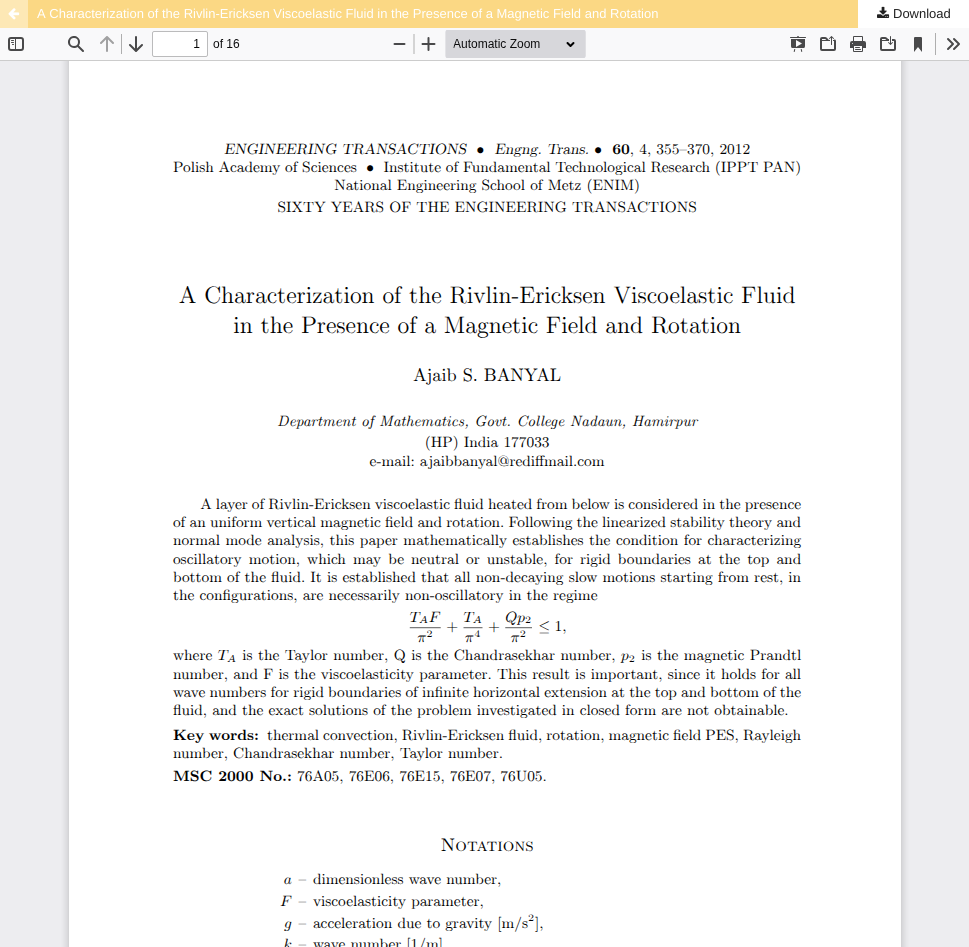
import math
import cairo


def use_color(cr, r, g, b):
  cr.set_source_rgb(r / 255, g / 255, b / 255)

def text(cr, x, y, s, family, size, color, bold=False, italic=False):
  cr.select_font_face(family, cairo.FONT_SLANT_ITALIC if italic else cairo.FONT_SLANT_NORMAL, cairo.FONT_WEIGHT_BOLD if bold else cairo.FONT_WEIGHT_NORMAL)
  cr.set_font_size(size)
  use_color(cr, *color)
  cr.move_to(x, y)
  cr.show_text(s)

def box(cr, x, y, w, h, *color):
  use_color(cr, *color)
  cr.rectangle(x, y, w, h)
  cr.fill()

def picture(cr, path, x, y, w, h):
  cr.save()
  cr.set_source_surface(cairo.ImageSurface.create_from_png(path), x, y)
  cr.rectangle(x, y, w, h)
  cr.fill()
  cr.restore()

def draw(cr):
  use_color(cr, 255, 255, 255)
  cr.paint()
  box(cr, 28, 0, 830, 28, 251, 216, 132)
  box(cr, 0, 0, 28, 28, 253, 232, 181)
  picture(cr, "img_01.png", 8, 8, 12, 12)
  picture(cr, "img_02.png", 877, 6, 13, 12)
  picture(cr, "img_03.png", 0, 28, 969, 919)
  text(cr, 37, 18, "A Characterization of the Rivlin-Ericksen Viscoelastic Fluid in the Presence of a Magnetic Field and Rotation", "Liberation Sans", 13, (255, 255, 255))
  text(cr, 893, 18, "Download", "Liberation Sans", 13, (33, 33, 33))


surface = cairo.ImageSurface(cairo.FORMAT_RGB24, 969, 947)
cr = cairo.Context(surface)
options = cairo.FontOptions()
options.set_hint_metrics(cairo.HINT_METRICS_OFF)
options.set_hint_style(cairo.HINT_STYLE_NONE)
cr.set_font_options(options)
cr.set_miter_limit(4)
draw(cr)
surface.write_to_png("out.png")
